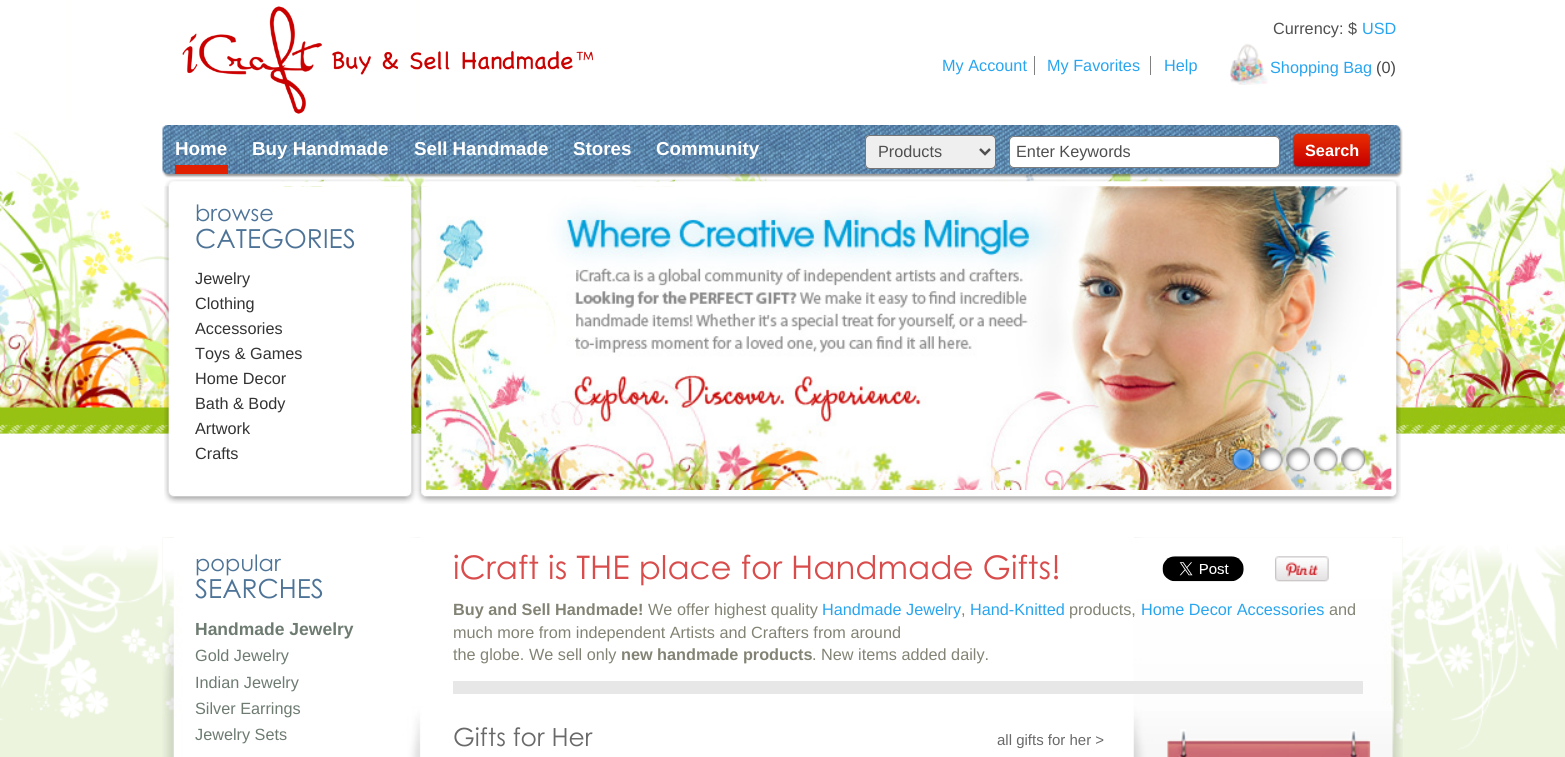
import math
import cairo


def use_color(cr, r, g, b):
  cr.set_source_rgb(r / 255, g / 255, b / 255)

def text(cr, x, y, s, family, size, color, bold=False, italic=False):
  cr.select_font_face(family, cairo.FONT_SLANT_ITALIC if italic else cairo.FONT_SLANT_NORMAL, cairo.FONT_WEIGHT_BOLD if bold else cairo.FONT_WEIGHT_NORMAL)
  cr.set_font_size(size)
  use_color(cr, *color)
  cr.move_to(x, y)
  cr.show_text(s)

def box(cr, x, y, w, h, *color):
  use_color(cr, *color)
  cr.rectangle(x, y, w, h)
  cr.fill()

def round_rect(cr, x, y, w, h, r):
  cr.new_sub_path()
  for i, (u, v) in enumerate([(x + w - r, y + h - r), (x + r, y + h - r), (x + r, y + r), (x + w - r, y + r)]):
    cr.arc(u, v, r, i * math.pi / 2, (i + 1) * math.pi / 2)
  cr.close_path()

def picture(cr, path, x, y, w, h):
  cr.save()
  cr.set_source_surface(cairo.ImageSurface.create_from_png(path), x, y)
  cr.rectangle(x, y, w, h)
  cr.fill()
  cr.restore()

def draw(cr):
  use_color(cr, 236, 244, 222)
  cr.paint()
  picture(cr, "img_01.png", 0, 0, 767, 434)
  picture(cr, "img_02.png", 0, 433, 767, 288)
  picture(cr, "img_03.png", 766, 0, 799, 434)
  picture(cr, "img_04.png", 766, 433, 799, 317)
  picture(cr, "img_05.png", 182, 6, 411, 108)
  box(cr, 1034, 56, 1, 19, 128, 128, 128)
  box(cr, 1150, 56, 1, 19, 128, 128, 128)
  picture(cr, "img_06.png", 1230, 43, 38, 42)
  picture(cr, "img_07.png", 162, 125, 1241, 53)
  box(cr, 175, 165, 53, 9, 224, 32, 0)
  use_color(cr, 239, 239, 239)
  round_rect(cr, 865, 135, 131, 34, 5)
  cr.fill()
  round_rect(cr, 865.5, 135.5, 130, 33, 4.5)
  cr.set_source_rgba(0, 0, 0, 0.51)
  cr.set_line_width(1)
  cr.stroke()
  cr.new_path()
  cr.move_to(980, 149)
  cr.line_to(985, 154)
  cr.line_to(990, 149)
  use_color(cr, 79, 79, 79)
  cr.set_line_width(2.5)
  cr.stroke()
  use_color(cr, 255, 255, 255)
  round_rect(cr, 1009, 136, 271, 32, 5)
  cr.fill()
  round_rect(cr, 1009.5, 136.5, 270, 31, 4.5)
  cr.set_source_rgba(0, 0, 0, 0.51)
  cr.set_line_width(1)
  cr.stroke()
  picture(cr, "img_08.png", 1292, 133, 80, 36)
  picture(cr, "img_10.png", 164, 186, 1237, 306)
  picture(cr, "img_09.png", 165, 179, 1235, 8)
  picture(cr, "img_11.png", 426, 186, 966, 304)
  picture(cr, "img_12.png", 1232, 448, 22, 23)
  picture(cr, "img_13.png", 1258, 447, 25, 25)
  picture(cr, "img_14.png", 1286, 447, 24, 25)
  picture(cr, "img_15.png", 1313, 447, 25, 25)
  picture(cr, "img_16.png", 1341, 447, 24, 25)
  picture(cr, "img_17.png", 164, 491, 1237, 13)
  picture(cr, "img_18.png", 162, 537, 1241, 220)
  picture(cr, "img_19.png", 162, 537, 1241, 220)
  box(cr, 453, 681, 910, 13, 231, 231, 231)
  picture(cr, "img_20.png", 1162, 556, 82, 26)
  picture(cr, "img_21.png", 1275, 556, 54, 26)
  picture(cr, "img_22.png", 1167, 729, 204, 28)
  text(cr, 1273, 34, "Currency: $", "Liberation Sans", 16.25, (79, 79, 79))
  text(cr, 1362, 34, "USD", "Liberation Sans", 16.25, (40, 165, 239))
  text(cr, 942, 71, "My Account", "Liberation Sans", 16.25, (40, 165, 239))
  text(cr, 1047, 71, "My Favorites", "Liberation Sans", 16.25, (40, 165, 239))
  text(cr, 1164, 71, "Help", "Liberation Sans", 16.25, (40, 165, 239))
  text(cr, 1270, 73, "Shopping Bag", "Liberation Sans", 16.25, (40, 165, 239))
  text(cr, 1376, 73, "(0)", "Liberation Sans", 16.25, (70, 70, 70))
  text(cr, 175, 155, "Home", "Liberation Sans", 18.75, (255, 255, 255), bold=True)
  text(cr, 252, 155, "Buy Handmade", "Liberation Sans", 18.75, (255, 255, 255), bold=True)
  text(cr, 414, 155, "Sell Handmade", "Liberation Sans", 18.75, (255, 255, 255), bold=True)
  text(cr, 573, 155, "Stores", "Liberation Sans", 18.75, (255, 255, 255), bold=True)
  text(cr, 656, 155, "Community", "Liberation Sans", 18.75, (255, 255, 255), bold=True)
  text(cr, 878, 157, "Products", "Liberation Sans", 16.25, (79, 79, 79))
  text(cr, 1016, 157, "Enter Keywords", "Liberation Sans", 16.25, (79, 79, 79))
  text(cr, 1305, 156, "Search", "Liberation Sans", 16.25, (255, 255, 255), bold=True)
  text(cr, 195, 221, "browse", "Century Gothic", 22.5, (77, 115, 151))
  text(cr, 195, 248, "CATEGORIES", "Century Gothic", 26.25, (77, 115, 151))
  text(cr, 195, 284, "Jewelry", "Liberation Sans", 16.25, (51, 51, 51))
  text(cr, 195, 309, "Clothing", "Liberation Sans", 16.25, (51, 51, 51))
  text(cr, 195, 334, "Accessories", "Liberation Sans", 16.25, (51, 51, 51))
  text(cr, 195, 359, "Toys & Games", "Liberation Sans", 16.25, (51, 51, 51))
  text(cr, 195, 384, "Home Decor", "Liberation Sans", 16.25, (51, 51, 51))
  text(cr, 195, 409, "Bath & Body", "Liberation Sans", 16.25, (51, 51, 51))
  text(cr, 195, 434, "Artwork", "Liberation Sans", 16.25, (51, 51, 51))
  text(cr, 195, 459, "Crafts", "Liberation Sans", 16.25, (51, 51, 51))
  text(cr, 195, 571, "popular", "Century Gothic", 22.5, (77, 115, 151))
  text(cr, 195, 598, "SEARCHES", "Century Gothic", 26.25, (77, 115, 151))
  text(cr, 195, 635, "Handmade Jewelry", "Liberation Sans", 17.5, (109, 123, 113), bold=True)
  text(cr, 195, 661, "Gold Jewelry", "Liberation Sans", 16.25, (109, 123, 113))
  text(cr, 195, 688, "Indian Jewelry", "Liberation Sans", 16.25, (109, 123, 113))
  text(cr, 195, 714, "Silver Earrings", "Liberation Sans", 16.25, (109, 123, 113))
  text(cr, 195, 740, "Jewelry Sets", "Liberation Sans", 16.25, (109, 123, 113))
  text(cr, 453, 579, "iCraft is THE place for Handmade Gifts!", "Century Gothic", 32.5, (217, 76, 76))
  text(cr, 453, 615, "Buy and Sell Handmade!", "Liberation Sans", 16.25, (131, 131, 117), bold=True)
  text(cr, 648, 615, "We offer highest quality", "Liberation Sans", 16.25, (131, 131, 117))
  text(cr, 822, 615, "Handmade Jewelry", "Liberation Sans", 16.25, (40, 165, 239))
  text(cr, 961, 615, ",", "Liberation Sans", 16.25, (131, 131, 117))
  text(cr, 970, 615, "Hand-Knitted", "Liberation Sans", 16.25, (40, 165, 239))
  text(cr, 1069, 615, "products,", "Liberation Sans", 16.25, (131, 131, 117))
  text(cr, 1141, 615, "Home Decor Accessories", "Liberation Sans", 16.25, (40, 165, 239))
  text(cr, 1329, 615, "and", "Liberation Sans", 16.25, (131, 131, 117))
  text(cr, 453, 638, "much more from independent Artists and Crafters from around", "Liberation Sans", 16.25, (131, 131, 117))
  text(cr, 453, 660, "the globe. We sell only", "Liberation Sans", 16.25, (131, 131, 117))
  text(cr, 621, 660, "new handmade products", "Liberation Sans", 16.25, (131, 131, 117), bold=True)
  text(cr, 812, 660, ". New items added daily.", "Liberation Sans", 16.25, (131, 131, 117))
  text(cr, 453, 746, "Gifts for Her", "Century Gothic", 25, (105, 105, 105))
  text(cr, 997, 745, "all gifts for her >", "Liberation Sans", 15, (105, 105, 105))


surface = cairo.ImageSurface(cairo.FORMAT_RGB24, 1565, 757)
cr = cairo.Context(surface)
options = cairo.FontOptions()
options.set_hint_metrics(cairo.HINT_METRICS_OFF)
options.set_hint_style(cairo.HINT_STYLE_NONE)
cr.set_font_options(options)
cr.set_miter_limit(4)
draw(cr)
surface.write_to_png("out.png")
